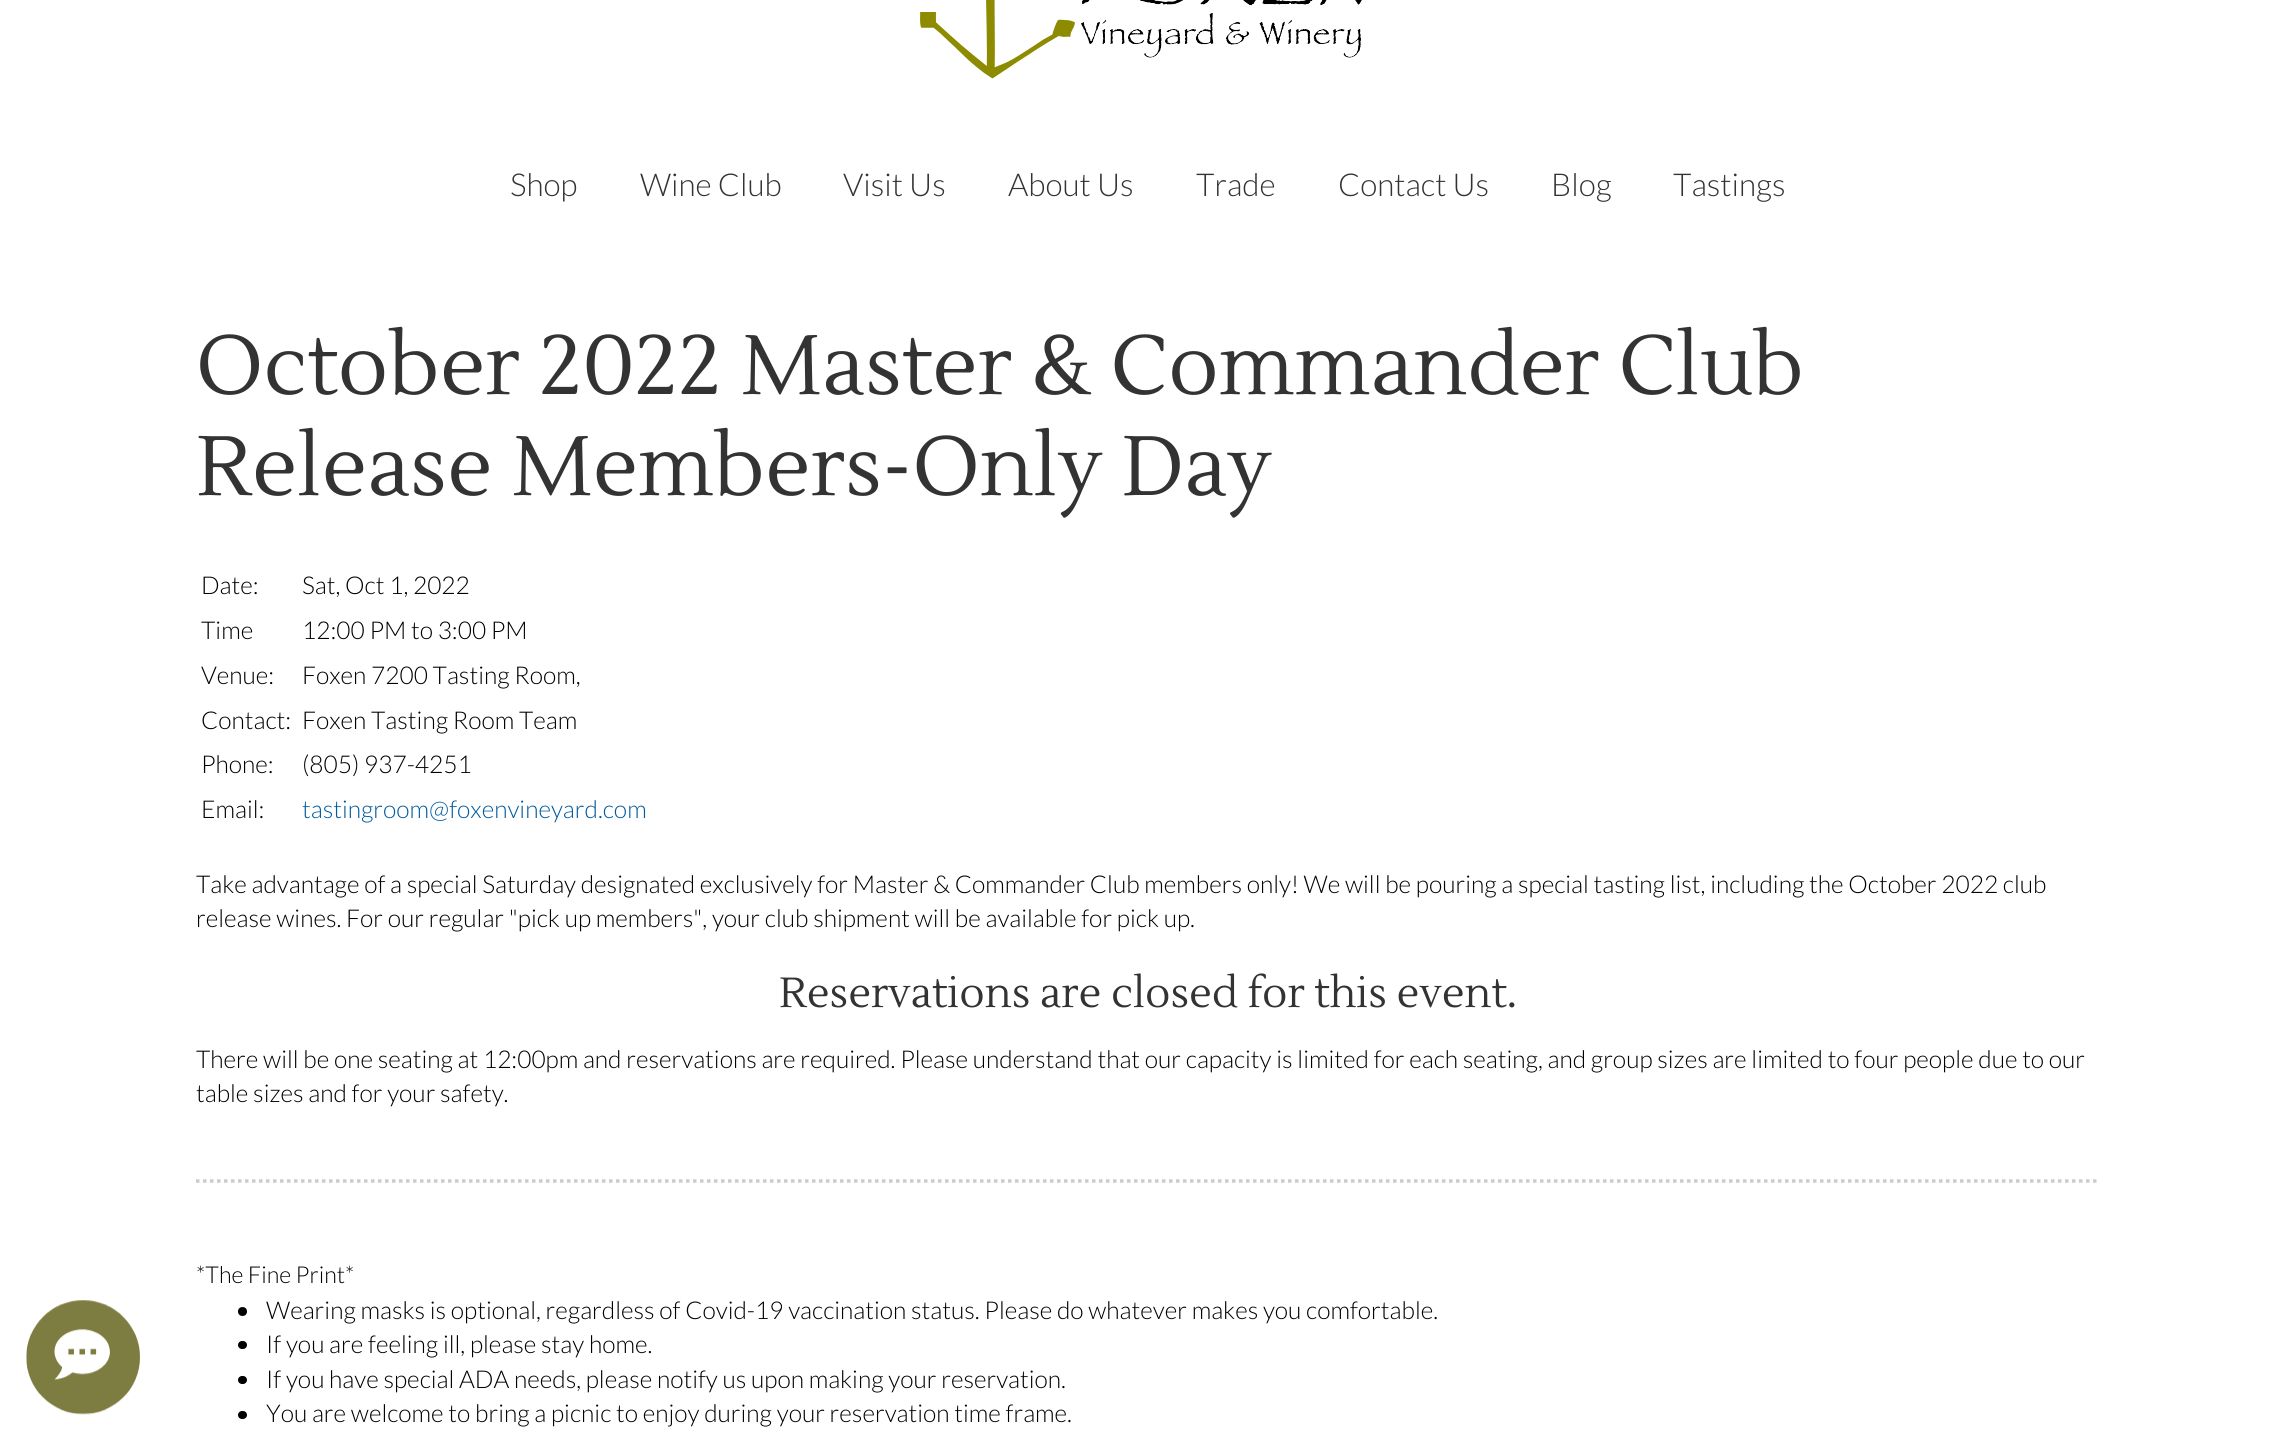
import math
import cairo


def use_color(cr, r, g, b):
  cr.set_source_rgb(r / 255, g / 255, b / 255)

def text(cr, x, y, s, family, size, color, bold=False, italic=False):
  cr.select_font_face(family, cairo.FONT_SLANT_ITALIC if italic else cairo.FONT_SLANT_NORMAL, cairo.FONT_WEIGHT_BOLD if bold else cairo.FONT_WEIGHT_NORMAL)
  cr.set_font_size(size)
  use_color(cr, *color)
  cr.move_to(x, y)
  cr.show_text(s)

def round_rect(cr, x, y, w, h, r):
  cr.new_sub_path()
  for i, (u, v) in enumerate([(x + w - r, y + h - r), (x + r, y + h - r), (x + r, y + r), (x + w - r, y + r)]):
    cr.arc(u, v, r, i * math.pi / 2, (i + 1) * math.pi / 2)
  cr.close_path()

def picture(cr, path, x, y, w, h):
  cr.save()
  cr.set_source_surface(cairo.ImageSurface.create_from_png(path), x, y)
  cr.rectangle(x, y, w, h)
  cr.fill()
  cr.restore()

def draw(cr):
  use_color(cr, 255, 255, 255)
  cr.paint()
  picture(cr, "img_01.png", 920, 0, 442, 79)
  picture(cr, "img_02.png", 26, 1300, 114, 115)
  cr.new_path()
  cr.move_to(196, 1181)
  cr.line_to(2100, 1181)
  use_color(cr, 204, 204, 204)
  cr.set_line_width(3.5)
  cr.set_dash([3.5, 3.5])
  cr.stroke()
  use_color(cr, 0, 0, 0)
  cr.arc(242.5, 1311.5, 4.5, 0, 2 * math.pi)
  cr.fill()
  round_rect(cr, 238, 1341, 9, 8, 4)
  cr.fill()
  round_rect(cr, 238, 1376, 9, 8, 4)
  cr.fill()
  round_rect(cr, 238, 1411, 9, 8, 4)
  cr.fill()
  text(cr, 510, 196, "Shop", "Lato Light", 31.5, (51, 51, 51))
  text(cr, 640, 196, "Wine Club", "Lato Light", 31.5, (51, 51, 51))
  text(cr, 843, 196, "Visit Us", "Lato Light", 31.5, (51, 51, 51))
  text(cr, 1008, 196, "About Us", "Lato Light", 31.5, (51, 51, 51))
  text(cr, 1196, 196, "Trade", "Lato Light", 31.5, (51, 51, 51))
  text(cr, 1338, 196, "Contact Us", "Lato Light", 31.5, (51, 51, 51))
  text(cr, 1551, 196, "Blog", "Lato Light", 31.5, (51, 51, 51))
  text(cr, 1673, 196, "Tastings", "Lato Light", 31.5, (51, 51, 51))
  text(cr, 196, 394, "October 2022 Master & Commander Club", "Lustria", 84, (51, 51, 51))
  text(cr, 196, 495, "Release Members-Only Day", "Lustria", 84, (51, 51, 51))
  text(cr, 201, 594, "Date:", "Lato Light", 24.5, (0, 0, 0))
  text(cr, 302, 594, "Sat, Oct 1, 2022", "Lato Light", 24.5, (0, 0, 0))
  text(cr, 201, 639, "Time", "Lato Light", 24.5, (0, 0, 0))
  text(cr, 302, 639, "12:00 PM to 3:00 PM", "Lato Light", 24.5, (0, 0, 0))
  text(cr, 201, 684, "Venue:", "Lato Light", 24.5, (0, 0, 0))
  text(cr, 302, 684, "Foxen 7200 Tasting Room,", "Lato Light", 24.5, (0, 0, 0))
  text(cr, 201, 729, "Contact:", "Lato Light", 24.5, (0, 0, 0))
  text(cr, 302, 729, "Foxen Tasting Room Team", "Lato Light", 24.5, (0, 0, 0))
  text(cr, 201, 773, "Phone:", "Lato Light", 24.5, (0, 0, 0))
  text(cr, 302, 773, "(805) 937-4251", "Lato Light", 24.5, (0, 0, 0))
  text(cr, 201, 818, "Email:", "Lato Light", 24.5, (0, 0, 0))
  text(cr, 302, 818, "tastingroom@foxenvineyard.com", "Lato Light", 24.5, (0, 90, 158))
  text(cr, 196, 893, "Take advantage of a special Saturday designated exclusively for Master & Commander Club members only! We will be pouring a special tasting list, including the October 2022 club", "Lato Light", 24.5, (0, 0, 0))
  text(cr, 196, 927, "release wines. For our regular \"pick up members\", your club shipment will be available for pick up.", "Lato Light", 24.5, (0, 0, 0))
  text(cr, 779, 1007, "Reservations are closed for this event.", "Lustria", 42, (51, 51, 51))
  text(cr, 196, 1068, "There will be one seating at 12:00pm and reservations are required. Please understand that our capacity is limited for each seating, and group sizes are limited to four people due to our", "Lato Light", 24.5, (0, 0, 0))
  text(cr, 196, 1102, "table sizes and for your safety.", "Lato Light", 24.5, (0, 0, 0))
  text(cr, 196, 1283, "*The Fine Print*", "Lato Light", 23.25, (0, 0, 0))
  text(cr, 266, 1319, "Wearing masks is optional, regardless of Covid-19 vaccination status. Please do whatever makes you comfortable.", "Lato Light", 24.5, (0, 0, 0))
  text(cr, 266, 1353, "If you are feeling ill, please stay home.", "Lato Light", 24.5, (0, 0, 0))
  text(cr, 266, 1388, "If you have special ADA needs, please notify us upon making your reservation.", "Lato Light", 24.5, (0, 0, 0))
  text(cr, 266, 1422, "You are welcome to bring a picnic to enjoy during your reservation time frame.", "Lato Light", 24.5, (0, 0, 0))


surface = cairo.ImageSurface(cairo.FORMAT_RGB24, 2296, 1439)
cr = cairo.Context(surface)
options = cairo.FontOptions()
options.set_hint_metrics(cairo.HINT_METRICS_OFF)
options.set_hint_style(cairo.HINT_STYLE_NONE)
cr.set_font_options(options)
cr.set_miter_limit(4)
draw(cr)
surface.write_to_png("out.png")
